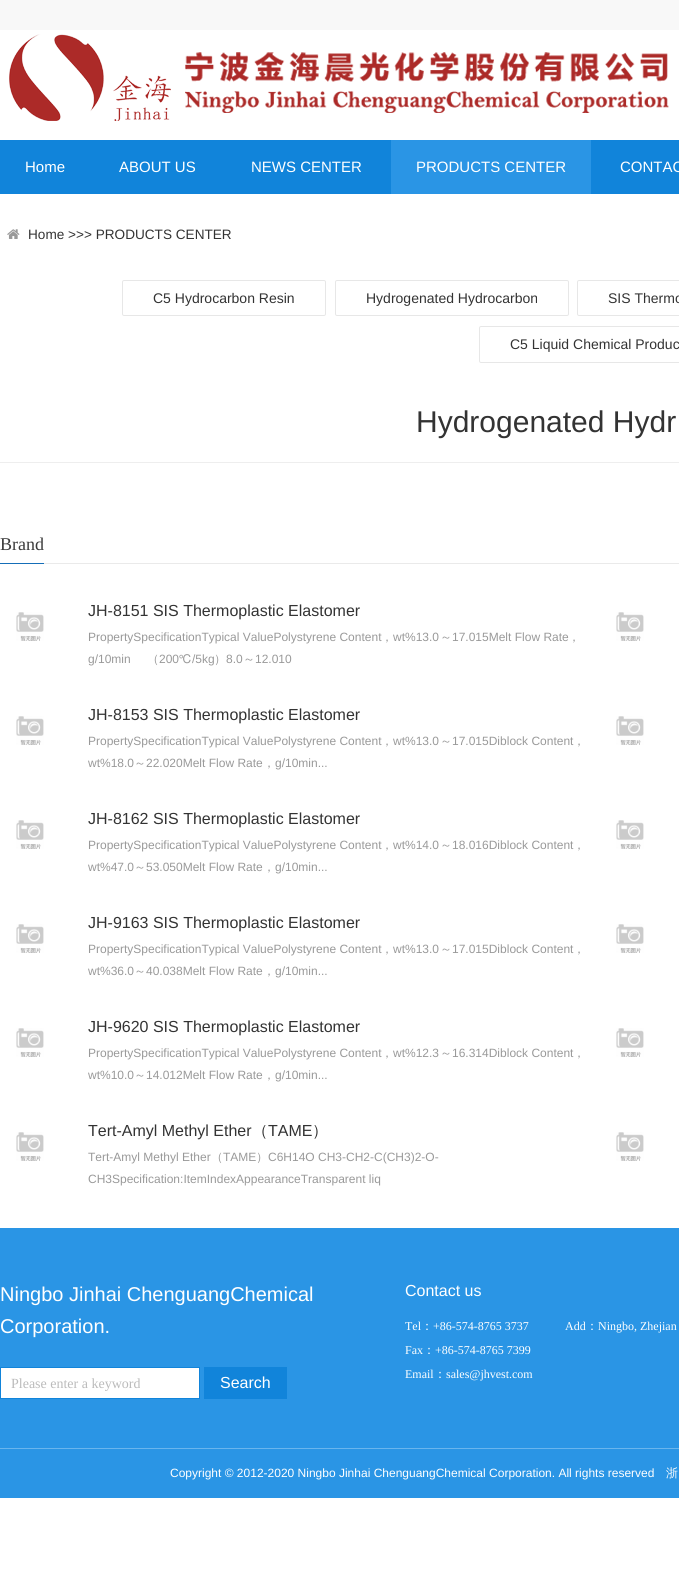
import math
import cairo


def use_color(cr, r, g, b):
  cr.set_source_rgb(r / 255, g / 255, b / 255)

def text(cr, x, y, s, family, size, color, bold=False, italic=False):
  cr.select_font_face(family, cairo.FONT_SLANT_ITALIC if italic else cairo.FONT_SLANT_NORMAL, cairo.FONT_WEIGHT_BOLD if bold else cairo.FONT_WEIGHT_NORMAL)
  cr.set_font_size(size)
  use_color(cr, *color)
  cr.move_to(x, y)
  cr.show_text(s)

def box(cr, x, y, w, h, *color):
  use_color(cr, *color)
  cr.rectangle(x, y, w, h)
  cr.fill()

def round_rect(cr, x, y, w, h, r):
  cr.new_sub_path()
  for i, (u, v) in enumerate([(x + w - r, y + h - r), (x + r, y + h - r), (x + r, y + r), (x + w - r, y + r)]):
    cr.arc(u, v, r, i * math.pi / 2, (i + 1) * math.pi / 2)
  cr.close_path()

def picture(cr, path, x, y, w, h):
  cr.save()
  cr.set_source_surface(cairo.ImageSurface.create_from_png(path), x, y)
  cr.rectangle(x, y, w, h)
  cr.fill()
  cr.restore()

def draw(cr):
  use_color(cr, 255, 255, 255)
  cr.paint()
  box(cr, 0, 0, 679, 30, 248, 248, 248)
  picture(cr, "img_01.png", 9, 34, 660, 87)
  box(cr, 0, 140, 679, 54, 17, 132, 218)
  box(cr, 391, 140, 200, 54, 42, 149, 229)
  picture(cr, "img_02.png", 7, 229, 13, 10)
  round_rect(cr, 122.5, 280.5, 203, 35, 1.5)
  use_color(cr, 231, 231, 231)
  cr.set_line_width(1)
  cr.stroke()
  round_rect(cr, 335.5, 280.5, 233, 35, 1.5)
  cr.stroke()
  round_rect(cr, 577.5, 280.5, 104, 35, 1.5)
  cr.stroke()
  round_rect(cr, 479.5, 326.5, 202, 36, 1.5)
  cr.stroke()
  box(cr, 0, 462, 679, 1, 238, 238, 238)
  box(cr, 44, 563, 635, 1, 234, 234, 234)
  box(cr, 0, 563, 44, 1, 21, 110, 184)
  picture(cr, "img_03.png", 16, 612, 28, 29)
  picture(cr, "img_03.png", 616, 612, 28, 29)
  picture(cr, "img_03.png", 16, 716, 28, 29)
  picture(cr, "img_03.png", 616, 716, 28, 29)
  picture(cr, "img_03.png", 16, 820, 28, 29)
  picture(cr, "img_03.png", 616, 820, 28, 29)
  picture(cr, "img_03.png", 16, 924, 28, 29)
  picture(cr, "img_03.png", 616, 924, 28, 29)
  picture(cr, "img_03.png", 16, 1028, 28, 29)
  picture(cr, "img_03.png", 616, 1028, 28, 29)
  picture(cr, "img_03.png", 16, 1132, 28, 29)
  picture(cr, "img_03.png", 616, 1132, 28, 29)
  box(cr, 0, 1228, 679, 270, 42, 149, 229)
  use_color(cr, 255, 255, 255)
  cr.rectangle(0.5, 1367.5, 199, 31)
  cr.fill_preserve()
  use_color(cr, 17, 132, 218)
  cr.stroke()
  box(cr, 204, 1367, 83, 32, 17, 132, 218)
  box(cr, 0, 1448, 679, 1, 105, 181, 237)
  text(cr, 25, 172, "Home", "Liberation Sans", 15, (255, 255, 255))
  text(cr, 119, 172, "ABOUT US", "Liberation Sans", 15, (255, 255, 255))
  text(cr, 251, 172, "NEWS CENTER", "Liberation Sans", 15, (255, 255, 255))
  text(cr, 416, 172, "PRODUCTS CENTER", "Liberation Sans", 15, (255, 255, 255))
  text(cr, 620, 172, "CONTAC", "Liberation Sans", 15, (255, 255, 255))
  text(cr, 28, 239, "Home >>> PRODUCTS CENTER", "Liberation Sans", 13.6, (51, 51, 51))
  text(cr, 153, 303, "C5 Hydrocarbon Resin", "Liberation Sans", 14, (51, 51, 51))
  text(cr, 366, 303, "Hydrogenated Hydrocarbon", "Liberation Sans", 14, (51, 51, 51))
  text(cr, 608, 303, "SIS Thermo", "Liberation Sans", 14, (51, 51, 51))
  text(cr, 510, 349, "C5 Liquid Chemical Produc", "Liberation Sans", 14, (51, 51, 51))
  text(cr, 416, 432, "Hydrogenated Hydr", "Liberation Sans", 30, (51, 51, 51))
  text(cr, 0, 550, "Brand", "Liberation Serif", 18, (59, 59, 59))
  text(cr, 88, 616, "JH-8151 SIS Thermoplastic Elastomer", "Liberation Sans", 16, (51, 51, 51))
  text(cr, 88, 641, "PropertySpecificationTypical ValuePolystyrene Content", "Liberation Sans", 12, (153, 153, 153))
  text(cr, 393, 641, "wt%13.0", "Liberation Sans", 12, (153, 153, 153))
  text(cr, 440, 641, "～", "WenQuanYi Zen Hei Medium", 12, (153, 153, 153))
  text(cr, 452, 641, "17.015Melt Flow Rate", "Liberation Sans", 12, (153, 153, 153))
  text(cr, 381, 641, "，", "WenQuanYi Zen Hei Medium", 12, (153, 153, 153))
  text(cr, 568, 641, "，", "WenQuanYi Zen Hei Medium", 12, (153, 153, 153))
  text(cr, 88, 663, "g/10min", "Liberation Sans", 12, (153, 153, 153))
  text(cr, 147, 663, "（", "WenQuanYi Zen Hei Medium", 12, (153, 153, 153))
  text(cr, 159, 663, "200", "Liberation Sans", 12, (153, 153, 153))
  text(cr, 179, 663, "℃", "FreeSans", 12, (153, 153, 153))
  text(cr, 192, 663, "/5kg", "Liberation Sans", 12, (153, 153, 153))
  text(cr, 214, 663, "）", "WenQuanYi Zen Hei Medium", 12, (153, 153, 153))
  text(cr, 226, 663, "8.0", "Liberation Sans", 12, (153, 153, 153))
  text(cr, 243, 663, "～", "WenQuanYi Zen Hei Medium", 12, (153, 153, 153))
  text(cr, 255, 663, "12.010", "Liberation Sans", 12, (153, 153, 153))
  text(cr, 88, 720, "JH-8153 SIS Thermoplastic Elastomer", "Liberation Sans", 16, (51, 51, 51))
  text(cr, 88, 745, "PropertySpecificationTypical ValuePolystyrene Content", "Liberation Sans", 12, (153, 153, 153))
  text(cr, 393, 745, "wt%13.0", "Liberation Sans", 12, (153, 153, 153))
  text(cr, 440, 745, "～", "WenQuanYi Zen Hei Medium", 12, (153, 153, 153))
  text(cr, 452, 745, "17.015Diblock Content", "Liberation Sans", 12, (153, 153, 153))
  text(cr, 381, 745, "，", "WenQuanYi Zen Hei Medium", 12, (153, 153, 153))
  text(cr, 573, 745, "，", "WenQuanYi Zen Hei Medium", 12, (153, 153, 153))
  text(cr, 88, 767, "wt%18.0", "Liberation Sans", 12, (153, 153, 153))
  text(cr, 134, 767, "～", "WenQuanYi Zen Hei Medium", 12, (153, 153, 153))
  text(cr, 146, 767, "22.020Melt Flow Rate", "Liberation Sans", 12, (153, 153, 153))
  text(cr, 275, 767, "g/10min...", "Liberation Sans", 12, (153, 153, 153))
  text(cr, 263, 767, "，", "WenQuanYi Zen Hei Medium", 12, (153, 153, 153))
  text(cr, 88, 824, "JH-8162 SIS Thermoplastic Elastomer", "Liberation Sans", 16, (51, 51, 51))
  text(cr, 88, 849, "PropertySpecificationTypical ValuePolystyrene Content", "Liberation Sans", 12, (153, 153, 153))
  text(cr, 393, 849, "wt%14.0", "Liberation Sans", 12, (153, 153, 153))
  text(cr, 440, 849, "～", "WenQuanYi Zen Hei Medium", 12, (153, 153, 153))
  text(cr, 452, 849, "18.016Diblock Content", "Liberation Sans", 12, (153, 153, 153))
  text(cr, 381, 849, "，", "WenQuanYi Zen Hei Medium", 12, (153, 153, 153))
  text(cr, 573, 849, "，", "WenQuanYi Zen Hei Medium", 12, (153, 153, 153))
  text(cr, 88, 871, "wt%47.0", "Liberation Sans", 12, (153, 153, 153))
  text(cr, 134, 871, "～", "WenQuanYi Zen Hei Medium", 12, (153, 153, 153))
  text(cr, 146, 871, "53.050Melt Flow Rate", "Liberation Sans", 12, (153, 153, 153))
  text(cr, 275, 871, "g/10min...", "Liberation Sans", 12, (153, 153, 153))
  text(cr, 263, 871, "，", "WenQuanYi Zen Hei Medium", 12, (153, 153, 153))
  text(cr, 88, 928, "JH-9163 SIS Thermoplastic Elastomer", "Liberation Sans", 16, (51, 51, 51))
  text(cr, 88, 953, "PropertySpecificationTypical ValuePolystyrene Content", "Liberation Sans", 12, (153, 153, 153))
  text(cr, 393, 953, "wt%13.0", "Liberation Sans", 12, (153, 153, 153))
  text(cr, 440, 953, "～", "WenQuanYi Zen Hei Medium", 12, (153, 153, 153))
  text(cr, 452, 953, "17.015Diblock Content", "Liberation Sans", 12, (153, 153, 153))
  text(cr, 381, 953, "，", "WenQuanYi Zen Hei Medium", 12, (153, 153, 153))
  text(cr, 573, 953, "，", "WenQuanYi Zen Hei Medium", 12, (153, 153, 153))
  text(cr, 88, 975, "wt%36.0", "Liberation Sans", 12, (153, 153, 153))
  text(cr, 134, 975, "～", "WenQuanYi Zen Hei Medium", 12, (153, 153, 153))
  text(cr, 146, 975, "40.038Melt Flow Rate", "Liberation Sans", 12, (153, 153, 153))
  text(cr, 275, 975, "g/10min...", "Liberation Sans", 12, (153, 153, 153))
  text(cr, 263, 975, "，", "WenQuanYi Zen Hei Medium", 12, (153, 153, 153))
  text(cr, 88, 1032, "JH-9620 SIS Thermoplastic Elastomer", "Liberation Sans", 16, (51, 51, 51))
  text(cr, 88, 1057, "PropertySpecificationTypical ValuePolystyrene Content", "Liberation Sans", 12, (153, 153, 153))
  text(cr, 393, 1057, "wt%12.3", "Liberation Sans", 12, (153, 153, 153))
  text(cr, 440, 1057, "～", "WenQuanYi Zen Hei Medium", 12, (153, 153, 153))
  text(cr, 452, 1057, "16.314Diblock Content", "Liberation Sans", 12, (153, 153, 153))
  text(cr, 381, 1057, "，", "WenQuanYi Zen Hei Medium", 12, (153, 153, 153))
  text(cr, 573, 1057, "，", "WenQuanYi Zen Hei Medium", 12, (153, 153, 153))
  text(cr, 88, 1079, "wt%10.0", "Liberation Sans", 12, (153, 153, 153))
  text(cr, 134, 1079, "～", "WenQuanYi Zen Hei Medium", 12, (153, 153, 153))
  text(cr, 146, 1079, "14.012Melt Flow Rate", "Liberation Sans", 12, (153, 153, 153))
  text(cr, 275, 1079, "g/10min...", "Liberation Sans", 12, (153, 153, 153))
  text(cr, 263, 1079, "，", "WenQuanYi Zen Hei Medium", 12, (153, 153, 153))
  text(cr, 88, 1136, "Tert-Amyl Methyl Ether", "Liberation Sans", 16, (51, 51, 51))
  text(cr, 252, 1136, "（", "WenQuanYi Zen Hei Medium", 16, (51, 51, 51))
  text(cr, 268, 1136, "TAME", "Liberation Sans", 16, (51, 51, 51))
  text(cr, 312, 1136, "）", "WenQuanYi Zen Hei Medium", 16, (51, 51, 51))
  text(cr, 88, 1161, "Tert-Amyl Methyl Ether", "Liberation Sans", 12, (153, 153, 153))
  text(cr, 211, 1161, "（", "WenQuanYi Zen Hei Medium", 12, (153, 153, 153))
  text(cr, 223, 1161, "TAME", "Liberation Sans", 12, (153, 153, 153))
  text(cr, 256, 1161, "）", "WenQuanYi Zen Hei Medium", 12, (153, 153, 153))
  text(cr, 268, 1161, "C6H14O CH3-CH2-C(CH3)2-O-", "Liberation Sans", 12, (153, 153, 153))
  text(cr, 88, 1183, "CH3Specification:ItemIndexAppearanceTransparent liq", "Liberation Sans", 12, (153, 153, 153))
  text(cr, 0, 1301, "Ningbo Jinhai ChenguangChemical", "Liberation Sans", 20, (255, 255, 255))
  text(cr, 0, 1333, "Corporation.", "Liberation Sans", 20, (255, 255, 255))
  text(cr, 11, 1388, "Please enter a keyword", "Liberation Serif", 14, (187, 187, 187))
  text(cr, 220, 1388, "Search", "Liberation Sans", 16, (255, 255, 255))
  text(cr, 405, 1296, "Contact us", "Liberation Sans", 16, (255, 255, 255))
  text(cr, 405, 1330, "Tel", "Liberation Serif", 12, (255, 255, 255))
  text(cr, 421, 1330, "：", "WenQuanYi Zen Hei Medium", 12, (255, 255, 255))
  text(cr, 433, 1330, "+86-574-8765 3737", "Liberation Serif", 12, (255, 255, 255))
  text(cr, 405, 1354, "Fax", "Liberation Serif", 12, (255, 255, 255))
  text(cr, 423, 1354, "：", "WenQuanYi Zen Hei Medium", 12, (255, 255, 255))
  text(cr, 435, 1354, "+86-574-8765 7399", "Liberation Serif", 12, (255, 255, 255))
  text(cr, 405, 1378, "Email", "Liberation Serif", 12, (255, 255, 255))
  text(cr, 434, 1378, "：", "WenQuanYi Zen Hei Medium", 12, (255, 255, 255))
  text(cr, 446, 1378, "sales@jhvest.com", "Liberation Serif", 12, (255, 255, 255))
  text(cr, 565, 1330, "Add", "Liberation Serif", 12, (255, 255, 255))
  text(cr, 586, 1330, "：", "WenQuanYi Zen Hei Medium", 12, (255, 255, 255))
  text(cr, 598, 1330, "Ningbo, Zhejian", "Liberation Serif", 12, (255, 255, 255))
  text(cr, 170, 1477, "Copyright © 2012-2020 Ningbo Jinhai ChenguangChemical Corporation. All rights reserved", "Liberation Sans", 12, (255, 255, 255))
  text(cr, 666, 1477, "浙", "WenQuanYi Zen Hei Medium", 12, (255, 255, 255))


surface = cairo.ImageSurface(cairo.FORMAT_RGB24, 679, 1580)
cr = cairo.Context(surface)
options = cairo.FontOptions()
options.set_hint_metrics(cairo.HINT_METRICS_OFF)
options.set_hint_style(cairo.HINT_STYLE_NONE)
cr.set_font_options(options)
cr.set_miter_limit(4)
draw(cr)
surface.write_to_png("out.png")
